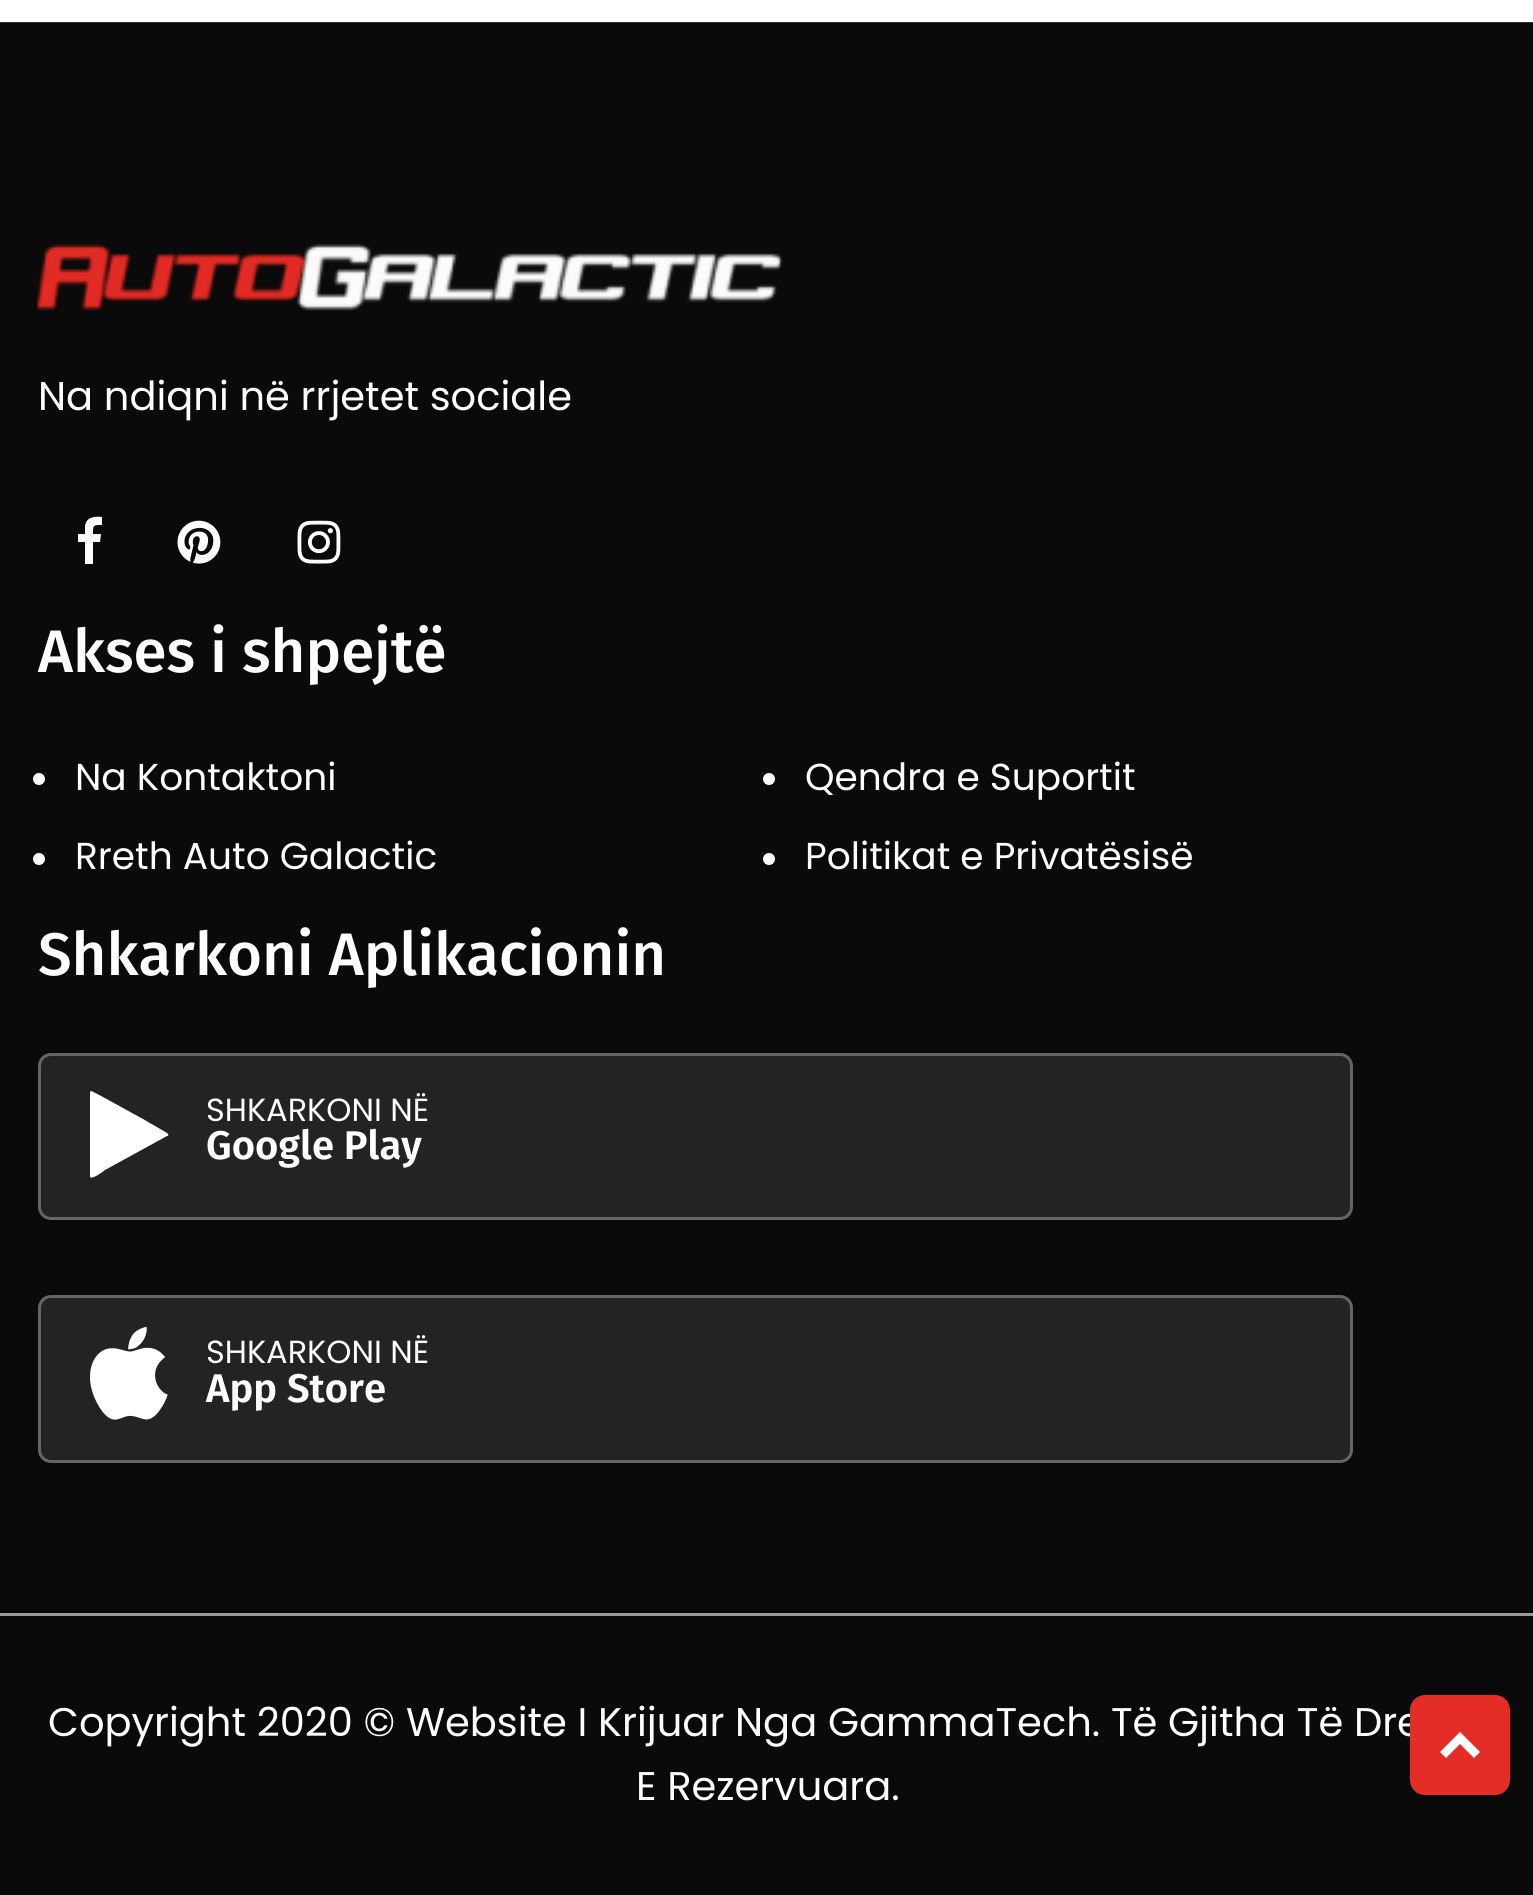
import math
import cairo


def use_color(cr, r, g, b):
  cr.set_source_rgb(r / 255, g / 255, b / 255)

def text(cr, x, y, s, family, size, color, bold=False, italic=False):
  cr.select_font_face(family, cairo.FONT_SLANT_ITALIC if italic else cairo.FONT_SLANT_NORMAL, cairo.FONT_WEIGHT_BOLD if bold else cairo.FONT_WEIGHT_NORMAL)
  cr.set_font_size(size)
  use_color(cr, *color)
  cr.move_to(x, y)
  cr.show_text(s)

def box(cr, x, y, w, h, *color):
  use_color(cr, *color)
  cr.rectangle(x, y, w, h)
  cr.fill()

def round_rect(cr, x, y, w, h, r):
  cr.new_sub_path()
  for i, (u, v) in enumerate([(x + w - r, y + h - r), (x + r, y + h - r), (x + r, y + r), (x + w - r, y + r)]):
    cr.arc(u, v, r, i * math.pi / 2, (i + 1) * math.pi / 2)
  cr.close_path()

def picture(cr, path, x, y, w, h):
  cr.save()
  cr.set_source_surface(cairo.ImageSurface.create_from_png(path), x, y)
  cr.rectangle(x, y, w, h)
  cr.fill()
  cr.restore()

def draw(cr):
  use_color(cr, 255, 255, 255)
  cr.paint()
  box(cr, 0, 22, 1533, 1, 52, 52, 52)
  box(cr, 0, 23, 1533, 1872, 10, 10, 10)
  picture(cr, "img_01.png", 37, 244, 746, 67)
  use_color(cr, 255, 255, 255)
  cr.new_path()
  cr.move_to(102, 517)
  cr.line_to(102, 525)
  cr.curve_to(93, 525, 93, 525, 93, 534)
  cr.line_to(101, 534)
  cr.line_to(100, 542)
  cr.line_to(93, 542)
  cr.line_to(93, 564)
  cr.line_to(85, 564)
  cr.line_to(85, 542)
  cr.line_to(78, 542)
  cr.line_to(78, 534)
  cr.line_to(85, 534)
  cr.line_to(85, 526)
  cr.curve_to(86, 517, 95, 516, 102, 517)
  cr.close_path()
  cr.fill()
  picture(cr, "img_02.png", 177, 520, 44, 44)
  picture(cr, "img_03.png", 297, 520, 44, 44)
  cr.arc(39, 779, 6, 0, 2 * math.pi)
  cr.fill()
  cr.arc(769, 779, 6, 0, 2 * math.pi)
  cr.fill()
  cr.arc(39, 859, 6, 0, 2 * math.pi)
  cr.fill()
  cr.arc(769, 859, 6, 0, 2 * math.pi)
  cr.fill()
  use_color(cr, 35, 35, 35)
  round_rect(cr, 38, 1053, 1315, 167, 13)
  cr.fill()
  round_rect(cr, 39.5, 1054.5, 1312, 164, 11.5)
  cr.set_source_rgba(1, 1, 1, 0.3)
  cr.set_line_width(3)
  cr.stroke()
  use_color(cr, 255, 255, 255)
  cr.new_path()
  cr.move_to(167, 1136)
  cr.line_to(105, 1170)
  cr.curve_to(104, 1171, 92, 1180, 90, 1177)
  cr.line_to(90, 1092)
  cr.line_to(91, 1091)
  cr.curve_to(93, 1091, 137, 1116, 143, 1119)
  cr.line_to(167, 1133)
  cr.line_to(168, 1134)
  cr.curve_to(169, 1135, 168, 1136, 167, 1136)
  cr.close_path()
  cr.fill()
  use_color(cr, 35, 35, 35)
  round_rect(cr, 38, 1295, 1315, 168, 13)
  cr.fill()
  round_rect(cr, 39.5, 1296.5, 1312, 165, 11.5)
  cr.set_source_rgba(1, 1, 1, 0.3)
  cr.stroke()
  picture(cr, "img_04.png", 90, 1326, 78, 94)
  box(cr, 0, 1613, 1533, 3, 153, 153, 153)
  text(cr, 38, 410, "Na ndiqni në rrjetet sociale", "Poppins", 40, (255, 255, 255))
  text(cr, 38, 672, "Akses i shpejtë", "Fira Sans Medium", 60, (255, 255, 255))
  text(cr, 75, 790, "Na Kontaktoni", "Poppins", 37.5, (255, 255, 255))
  text(cr, 805, 790, "Qendra e Suportit", "Poppins", 37.5, (255, 255, 255))
  text(cr, 75, 869, "Rreth Auto Galactic", "Poppins", 37.5, (255, 255, 255))
  text(cr, 805, 869, "Politikat e Privatësisë", "Poppins", 37.5, (255, 255, 255))
  text(cr, 38, 975, "Shkarkoni Aplikacionin", "Fira Sans Medium", 60, (255, 255, 255))
  text(cr, 206, 1121, "SHKARKONI NË", "Poppins", 32, (255, 255, 255))
  text(cr, 206, 1159, "Google Play", "Fira Sans SemiBold", 40, (255, 255, 255))
  text(cr, 206, 1363, "SHKARKONI NË", "Poppins", 32, (255, 255, 255))
  text(cr, 206, 1402, "App Store", "Fira Sans SemiBold", 40, (255, 255, 255))
  text(cr, 48, 1736, "Copyright 2020 © Website I Krijuar Nga GammaTech. Të Gjitha Të Dre", "Poppins", 40, (255, 255, 255))
  text(cr, 636, 1800, "E Rezervuara.", "Poppins", 40, (255, 255, 255))
  use_color(cr, 229, 45, 39)
  round_rect(cr, 1410, 1695, 100, 100, 15)
  cr.fill()
  use_color(cr, 255, 255, 255)
  cr.new_path()
  cr.move_to(1460, 1732)
  cr.line_to(1480, 1752)
  cr.line_to(1474, 1758)
  cr.line_to(1460, 1744)
  cr.line_to(1446, 1758)
  cr.line_to(1440, 1752)
  cr.close_path()
  cr.fill()


surface = cairo.ImageSurface(cairo.FORMAT_RGB24, 1533, 1895)
cr = cairo.Context(surface)
options = cairo.FontOptions()
options.set_hint_metrics(cairo.HINT_METRICS_OFF)
options.set_hint_style(cairo.HINT_STYLE_NONE)
cr.set_font_options(options)
cr.set_miter_limit(4)
draw(cr)
surface.write_to_png("out.png")
